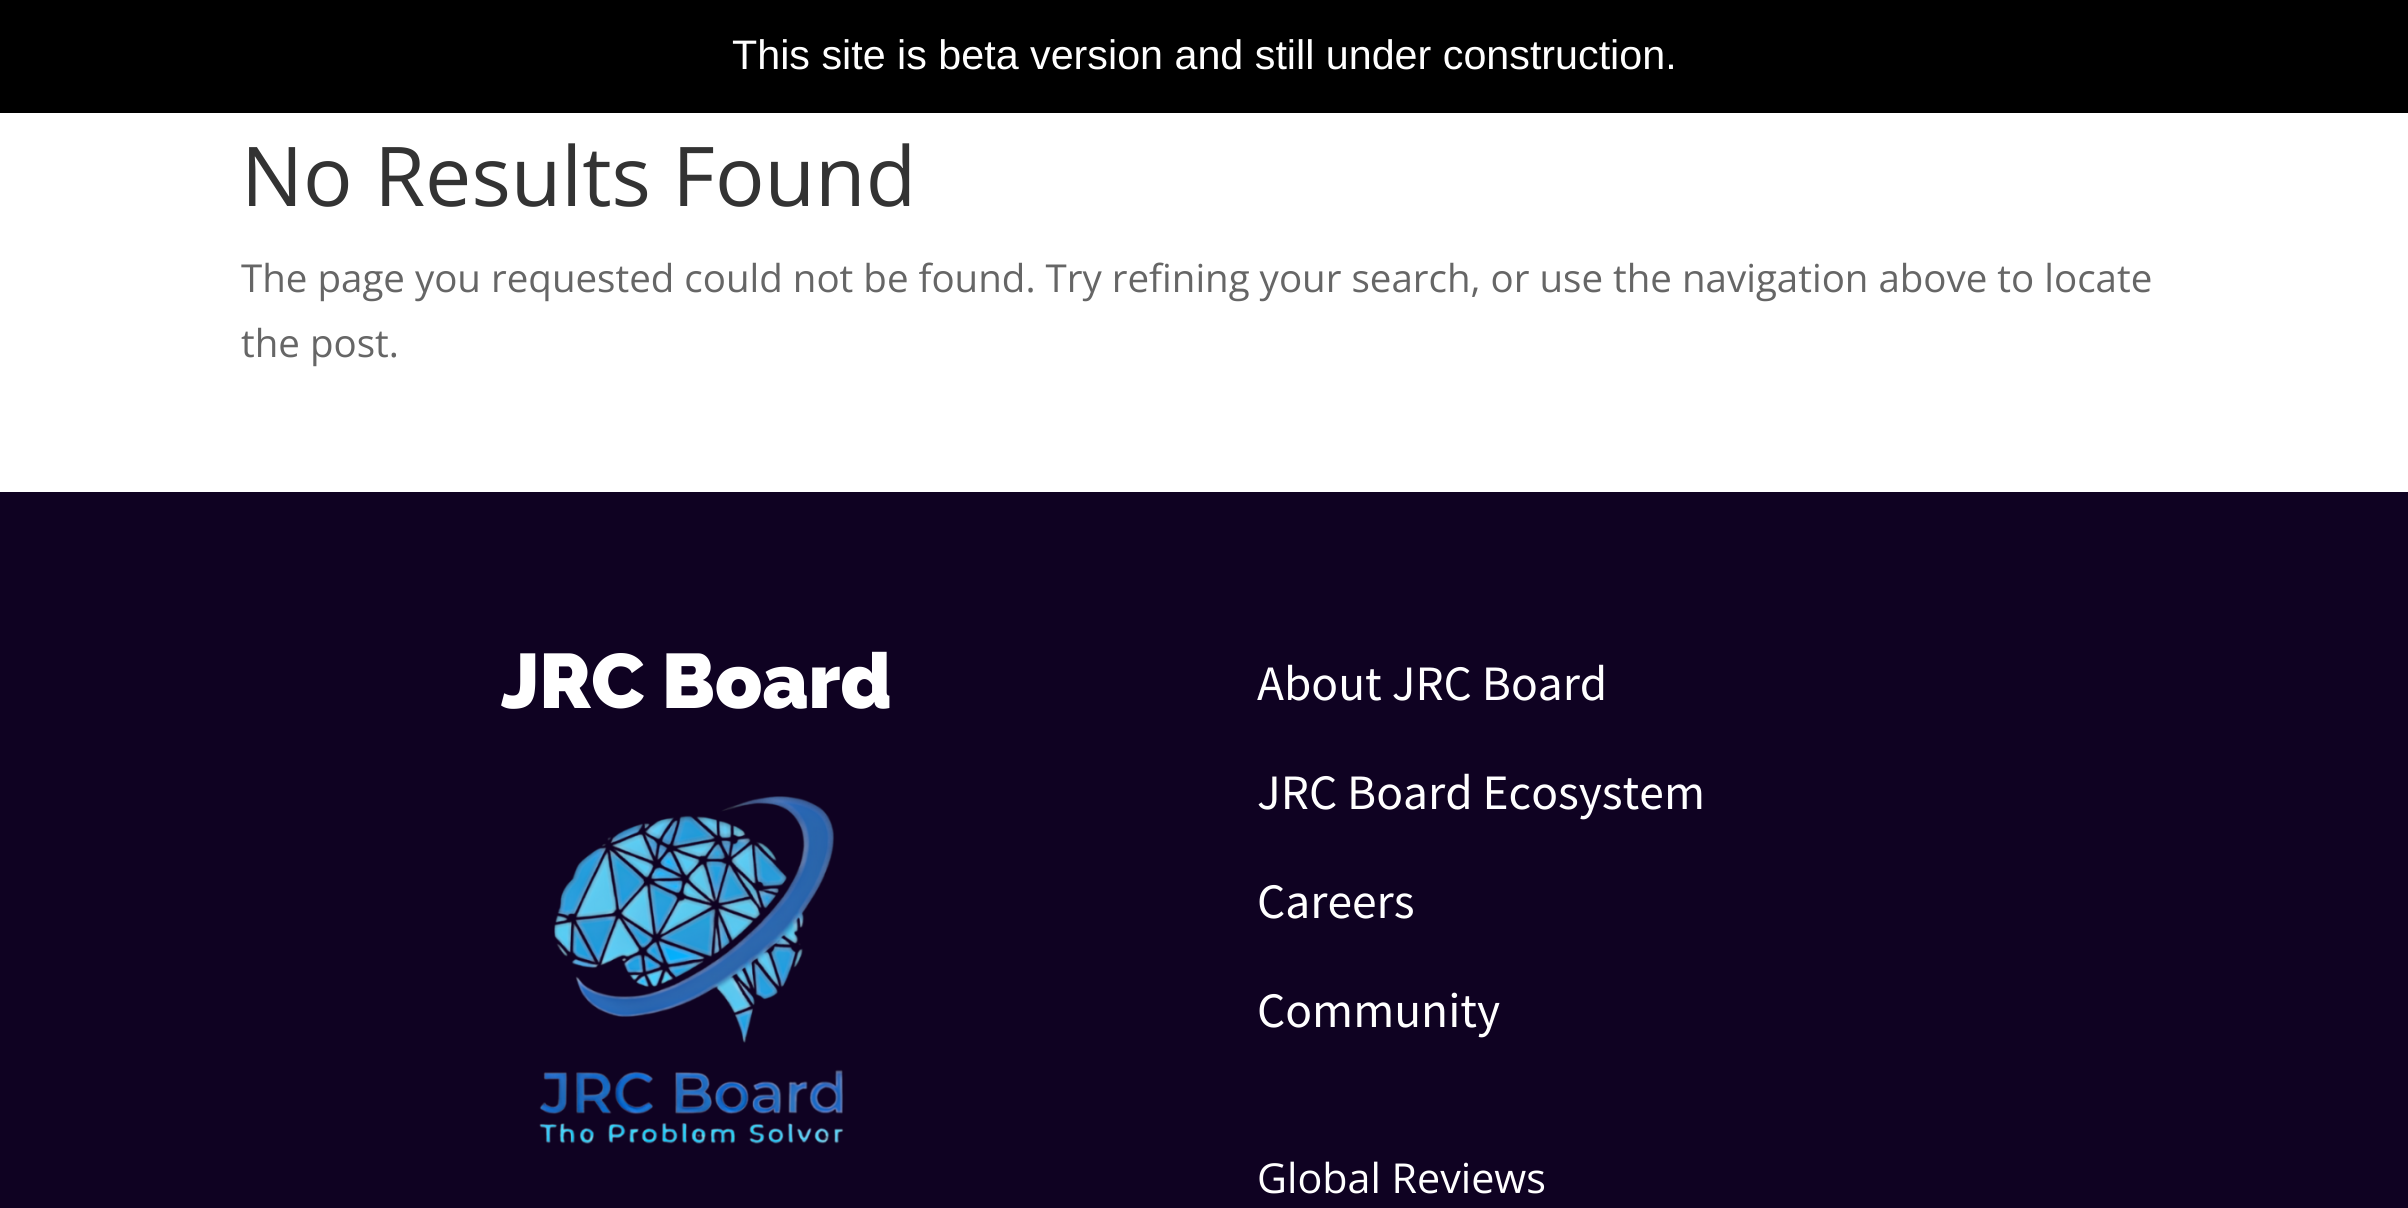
import math
import cairo


def use_color(cr, r, g, b):
  cr.set_source_rgb(r / 255, g / 255, b / 255)

def text(cr, x, y, s, family, size, color, bold=False, italic=False):
  cr.select_font_face(family, cairo.FONT_SLANT_ITALIC if italic else cairo.FONT_SLANT_NORMAL, cairo.FONT_WEIGHT_BOLD if bold else cairo.FONT_WEIGHT_NORMAL)
  cr.set_font_size(size)
  use_color(cr, *color)
  cr.move_to(x, y)
  cr.show_text(s)

def box(cr, x, y, w, h, *color):
  use_color(cr, *color)
  cr.rectangle(x, y, w, h)
  cr.fill()

def picture(cr, path, x, y, w, h):
  cr.save()
  cr.set_source_surface(cairo.ImageSurface.create_from_png(path), x, y)
  cr.rectangle(x, y, w, h)
  cr.fill()
  cr.restore()

def draw(cr):
  use_color(cr, 255, 255, 255)
  cr.paint()
  box(cr, 0, 0, 2408, 113, 0, 0, 0)
  box(cr, 0, 492, 2408, 716, 15, 2, 34)
  picture(cr, "img_01.png", 539, 796, 305, 348)
  text(cr, 732, 69, "This site is beta version and still under construction.", "Liberation Sans", 41.25, (255, 255, 255))
  text(cr, 241, 206, "No Results Found", "Open Sans", 82.5, (51, 51, 51))
  text(cr, 241, 292, "The page you requested could not be found. Try refining your search, or use the navigation above to locate", "Open Sans", 38.5, (102, 102, 102))
  text(cr, 241, 357, "the post.", "Open Sans", 38.5, (102, 102, 102))
  text(cr, 501, 708, "JRC Board", "Raleway Black", 77, (255, 255, 255))
  text(cr, 1257, 700, "About JRC Board", "Source Sans Pro", 49.5, (255, 255, 255))
  text(cr, 1257, 809, "JRC Board Ecosystem", "Source Sans Pro", 49.5, (255, 255, 255))
  text(cr, 1257, 918, "Careers", "Source Sans Pro", 49.5, (255, 255, 255))
  text(cr, 1257, 1027, "Community", "Source Sans Pro", 49.5, (255, 255, 255))
  text(cr, 1257, 1193, "Global Reviews", "Open Sans", 41.25, (255, 255, 255))


surface = cairo.ImageSurface(cairo.FORMAT_RGB24, 2408, 1208)
cr = cairo.Context(surface)
options = cairo.FontOptions()
options.set_hint_metrics(cairo.HINT_METRICS_OFF)
options.set_hint_style(cairo.HINT_STYLE_NONE)
cr.set_font_options(options)
cr.set_miter_limit(4)
draw(cr)
surface.write_to_png("out.png")
